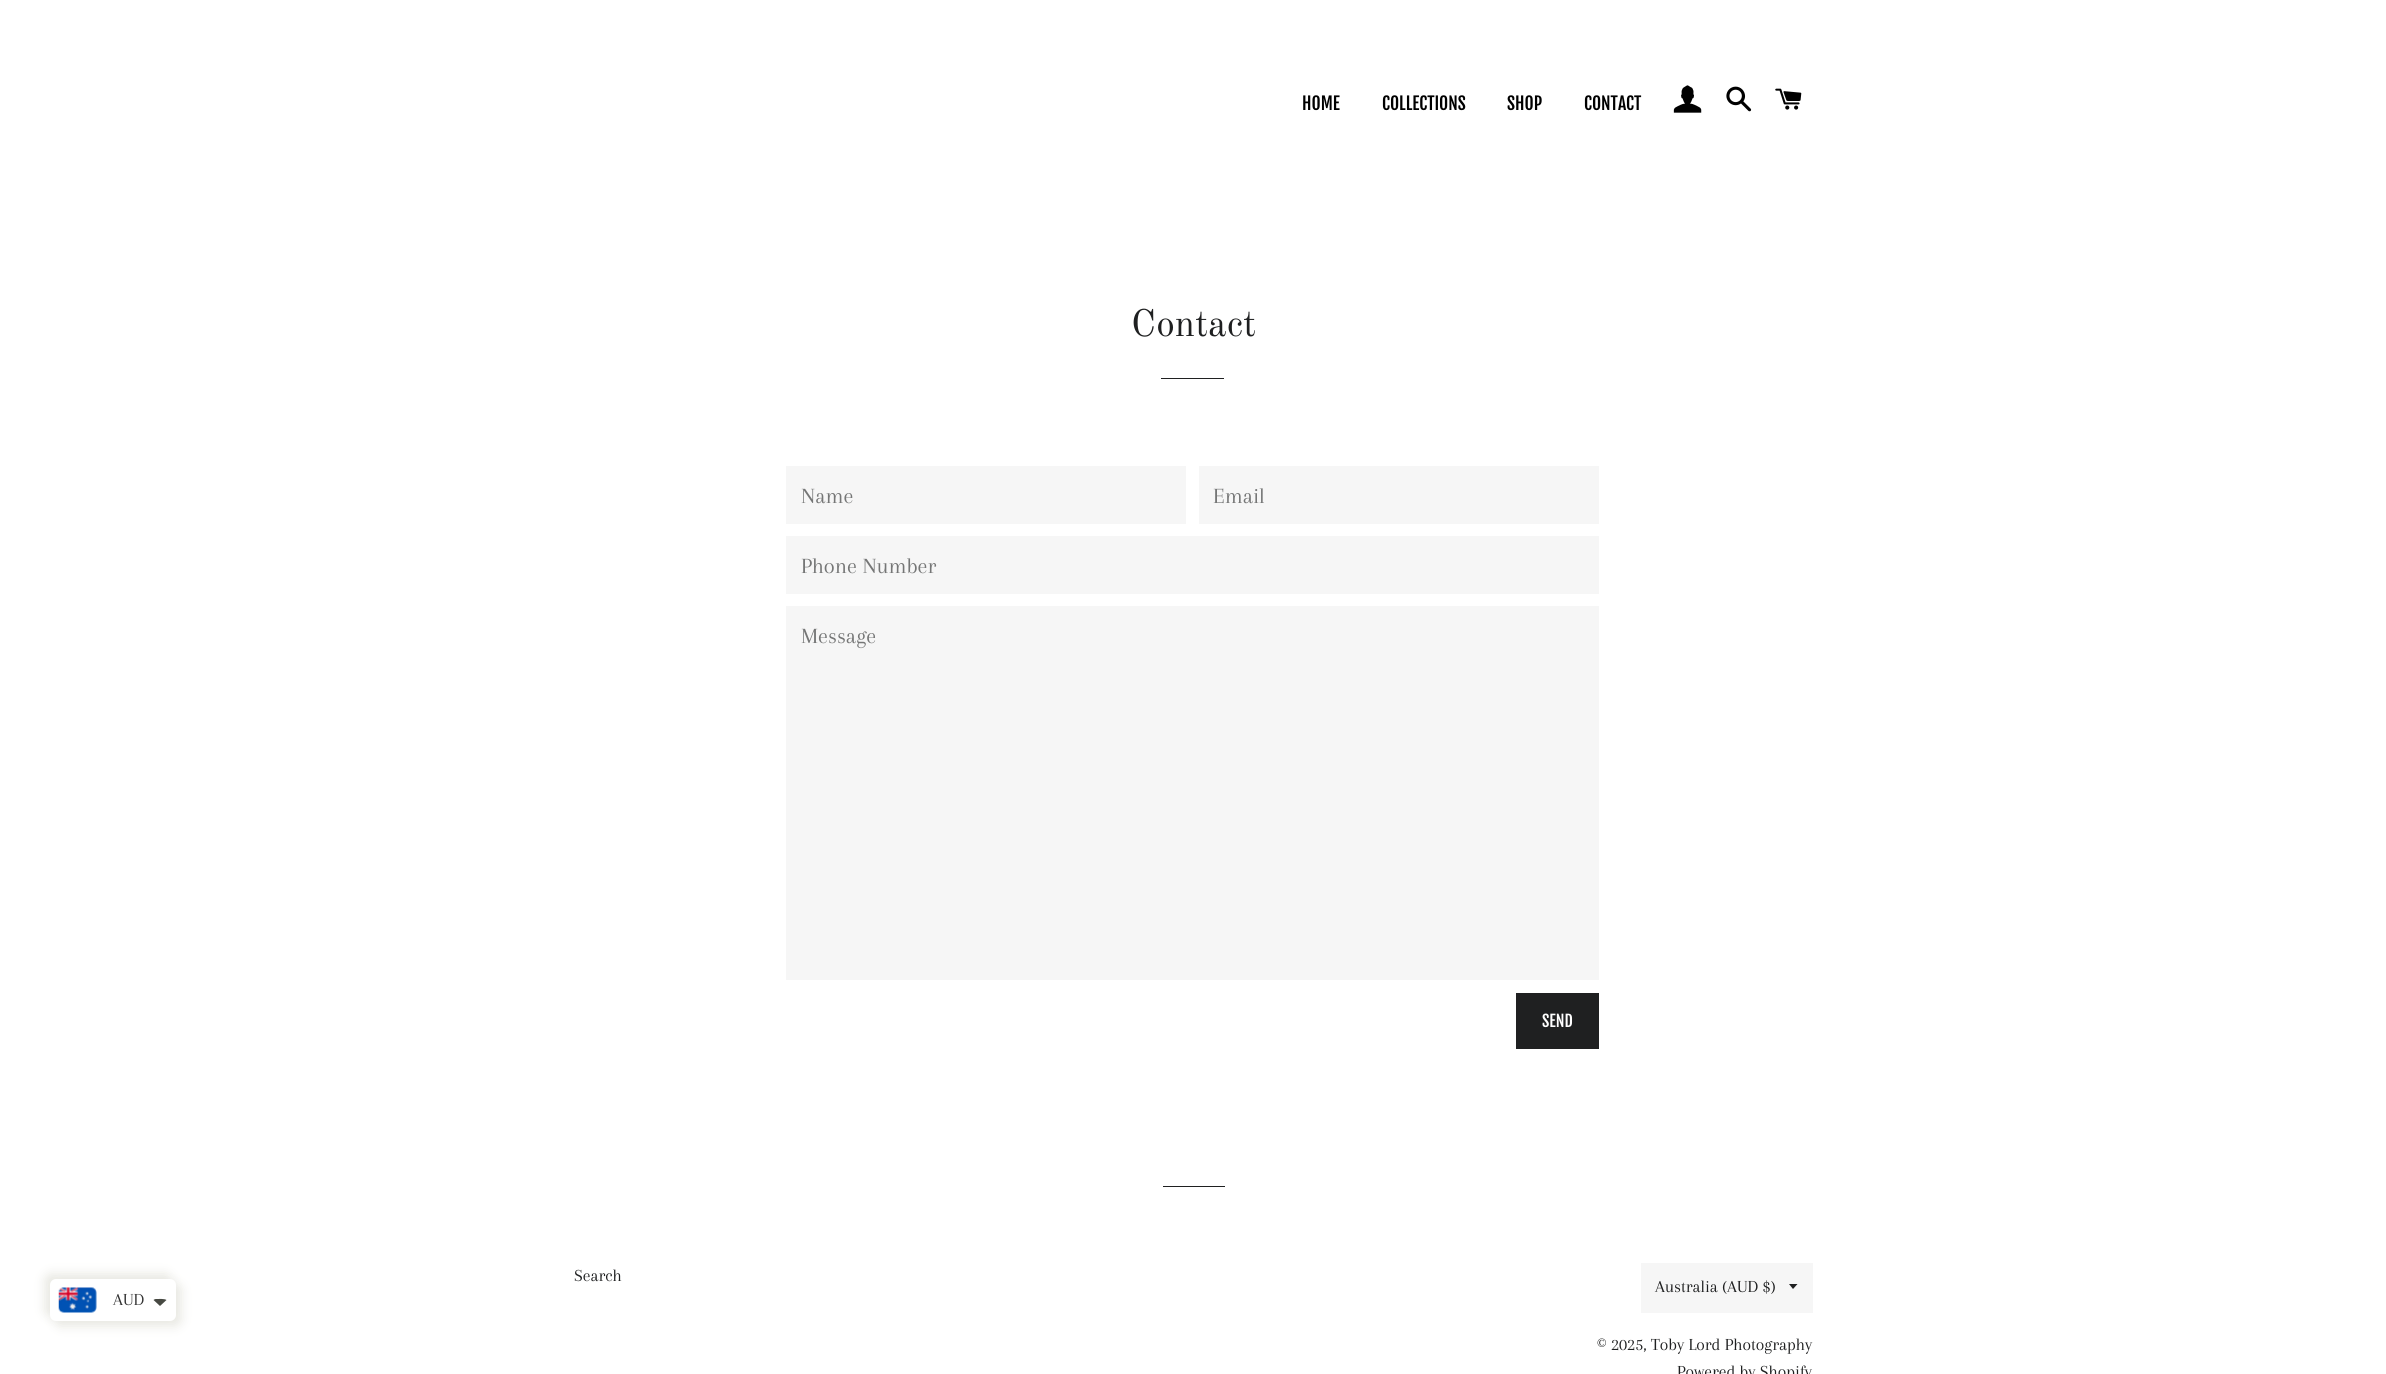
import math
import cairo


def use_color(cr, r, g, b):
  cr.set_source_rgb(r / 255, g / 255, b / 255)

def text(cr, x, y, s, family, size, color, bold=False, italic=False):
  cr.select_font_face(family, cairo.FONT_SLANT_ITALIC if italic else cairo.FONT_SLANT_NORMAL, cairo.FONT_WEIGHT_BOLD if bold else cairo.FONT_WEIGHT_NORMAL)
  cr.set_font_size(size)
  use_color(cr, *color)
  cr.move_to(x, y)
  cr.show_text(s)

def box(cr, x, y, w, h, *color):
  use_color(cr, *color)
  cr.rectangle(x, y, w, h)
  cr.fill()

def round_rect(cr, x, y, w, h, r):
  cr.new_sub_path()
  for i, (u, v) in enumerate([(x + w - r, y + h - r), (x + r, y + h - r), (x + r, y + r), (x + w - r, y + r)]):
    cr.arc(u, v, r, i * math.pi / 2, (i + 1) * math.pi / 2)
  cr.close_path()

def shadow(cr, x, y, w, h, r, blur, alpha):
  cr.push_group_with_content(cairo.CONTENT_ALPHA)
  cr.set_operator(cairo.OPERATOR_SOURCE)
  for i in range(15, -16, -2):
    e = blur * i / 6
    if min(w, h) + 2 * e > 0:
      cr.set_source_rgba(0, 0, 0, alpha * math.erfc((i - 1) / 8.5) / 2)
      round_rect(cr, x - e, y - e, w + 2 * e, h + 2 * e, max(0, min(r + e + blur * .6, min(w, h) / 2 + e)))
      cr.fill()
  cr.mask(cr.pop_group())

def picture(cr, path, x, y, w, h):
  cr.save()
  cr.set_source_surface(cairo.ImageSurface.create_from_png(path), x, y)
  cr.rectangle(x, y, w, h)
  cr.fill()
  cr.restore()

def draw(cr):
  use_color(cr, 255, 255, 255)
  cr.paint()
  picture(cr, "img_01.png", 1673, 85, 29, 28)
  picture(cr, "img_02.png", 1726, 86, 26, 26)
  picture(cr, "img_03.png", 1775, 88, 27, 22)
  use_color(cr, 232, 232, 226)
  shadow(cr, 45, 1274, 126, 42, 6, 5.5, 1)
  shadow(cr, 55, 1284, 126, 42, 6, 5.5, 1)
  use_color(cr, 255, 255, 255)
  round_rect(cr, 50, 1279, 126, 42, 6)
  cr.fill()
  picture(cr, "img_04.png", 58, 1287, 39, 26)
  use_color(cr, 71, 73, 66)
  cr.new_path()
  cr.move_to(156, 1299)
  cr.curve_to(158.5, 1299, 164.5, 1298.5, 166.5, 1300)
  cr.line_to(160, 1306)
  cr.line_to(153.5, 1300)
  cr.curve_to(154, 1299.5, 155, 1299, 156, 1299)
  cr.close_path()
  cr.fill()
  box(cr, 1161, 378, 63, 1, 31, 32, 33)
  box(cr, 786, 466, 400, 58, 246, 246, 246)
  box(cr, 1199, 466, 400, 58, 246, 246, 246)
  box(cr, 786, 536, 813, 58, 246, 246, 246)
  box(cr, 786, 606, 813, 374, 246, 246, 246)
  box(cr, 1516, 993, 83, 56, 31, 32, 33)
  box(cr, 1163, 1186, 62, 1, 31, 32, 33)
  box(cr, 1641, 1263, 172, 50, 246, 246, 246)
  use_color(cr, 31, 32, 33)
  cr.new_path()
  cr.move_to(1789, 1284)
  cr.line_to(1793, 1289)
  cr.line_to(1797.5, 1284)
  cr.close_path()
  cr.fill()
  text(cr, 1302, 110, "HOME", "Fjalla One", 17.5, (0, 0, 0))
  text(cr, 1382, 110, "COLLECTIONS", "Fjalla One", 17.5, (0, 0, 0))
  text(cr, 1507, 110, "SHOP", "Fjalla One", 17.5, (0, 0, 0))
  text(cr, 1584, 110, "CONTACT", "Fjalla One", 17.5, (0, 0, 0))
  text(cr, 113, 1305, "AUD", "Arapey", 17.5, (51, 51, 51))
  text(cr, 1131, 336, "Contact", "Old Standard TT", 37.5, (31, 32, 33))
  text(cr, 801, 503, "Name", "Arapey", 22.5, (117, 118, 118))
  text(cr, 1213, 503, "Email", "Arapey", 22.5, (117, 118, 118))
  text(cr, 801, 573, "Phone Number", "Arapey", 22.5, (117, 118, 118))
  text(cr, 801, 643, "Message", "Arapey", 22.5, (117, 118, 118))
  text(cr, 1542, 1027, "SEND", "Fjalla One", 16, (255, 255, 255))
  text(cr, 574, 1281, "Search", "Arapey", 17.5, (31, 32, 33))
  text(cr, 1655, 1292, "Australia (AUD $)", "Arapey", 17.5, (31, 32, 33))
  text(cr, 1597, 1350, "© 2025, Toby Lord Photography", "Arapey", 17.5, (31, 32, 33))
  text(cr, 1677, 1377, "Powered by Shopify", "Arapey", 17.5, (31, 32, 33))


surface = cairo.ImageSurface(cairo.FORMAT_RGB24, 2386, 1374)
cr = cairo.Context(surface)
options = cairo.FontOptions()
options.set_hint_metrics(cairo.HINT_METRICS_OFF)
options.set_hint_style(cairo.HINT_STYLE_NONE)
cr.set_font_options(options)
cr.set_miter_limit(4)
draw(cr)
surface.write_to_png("out.png")
